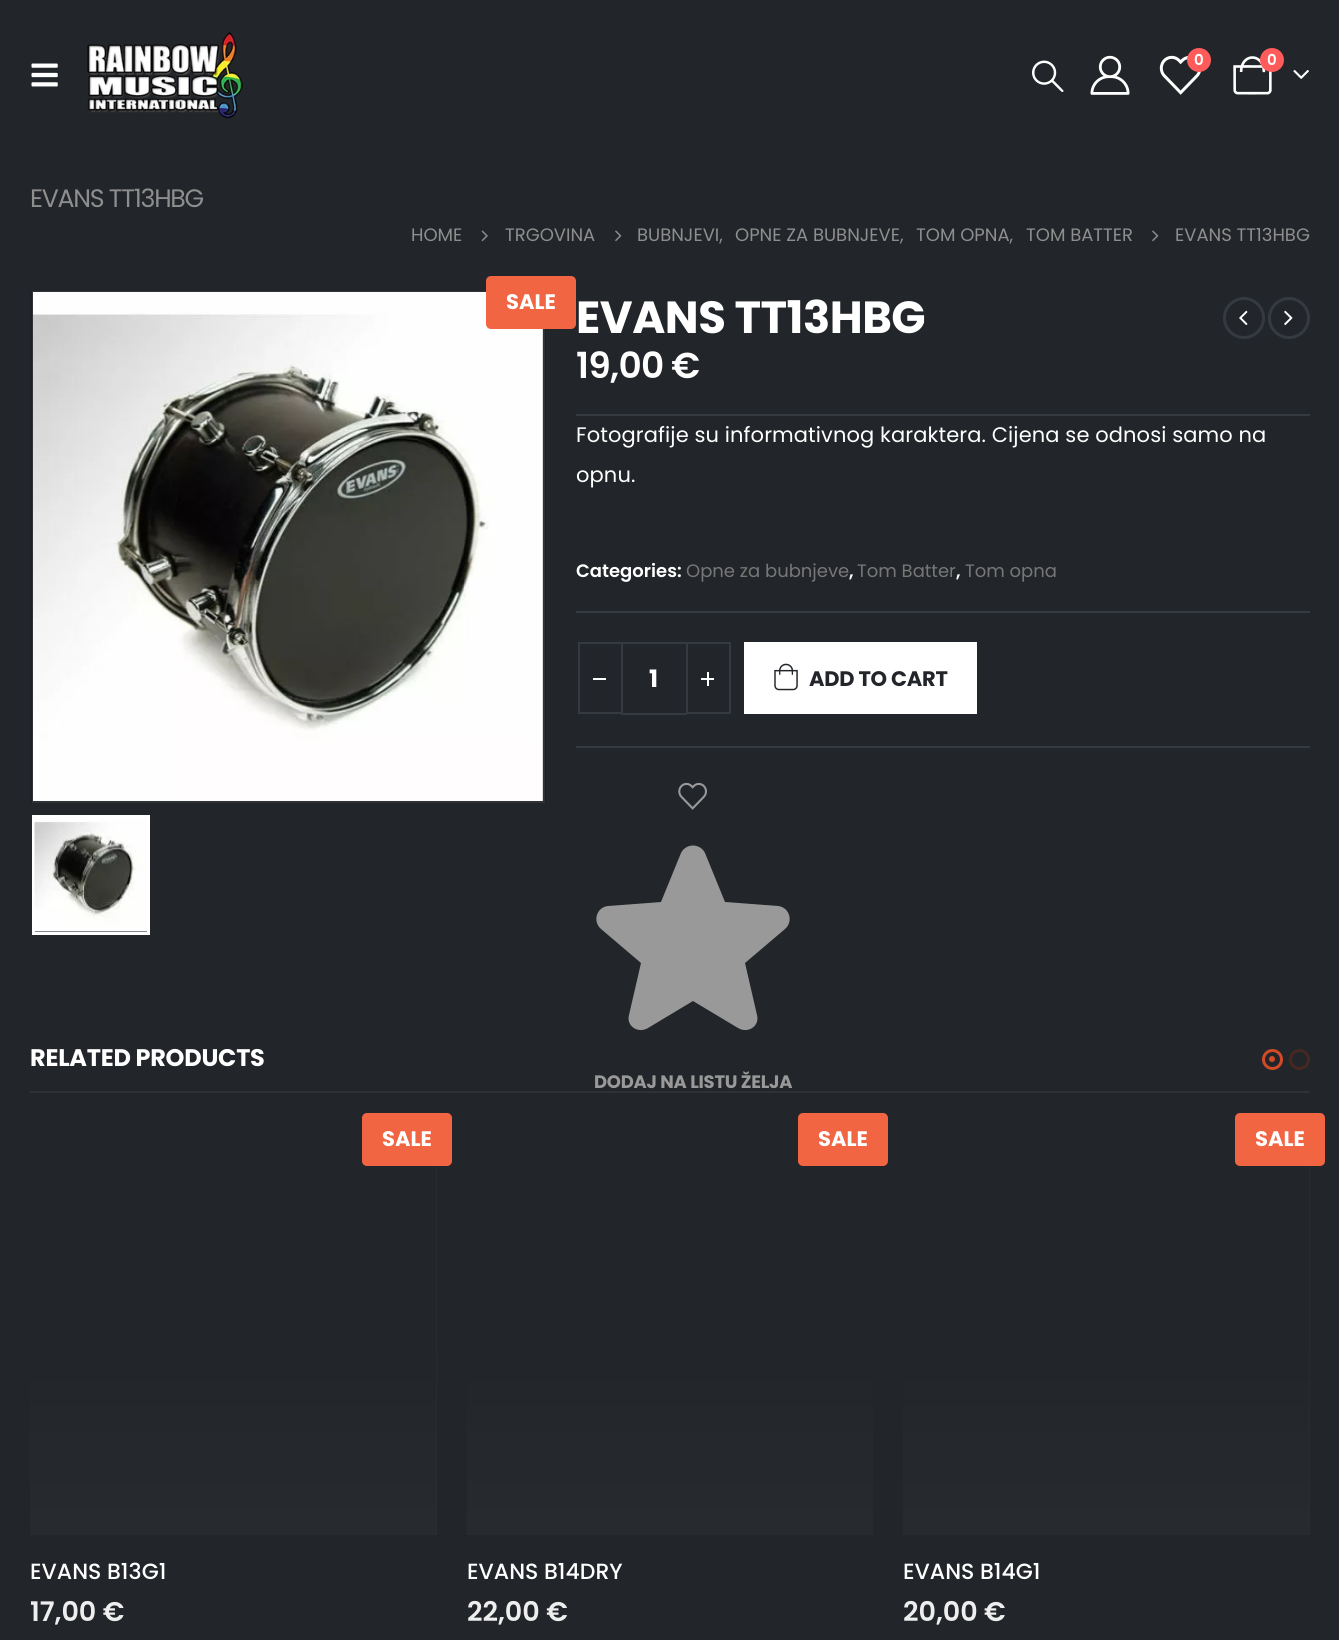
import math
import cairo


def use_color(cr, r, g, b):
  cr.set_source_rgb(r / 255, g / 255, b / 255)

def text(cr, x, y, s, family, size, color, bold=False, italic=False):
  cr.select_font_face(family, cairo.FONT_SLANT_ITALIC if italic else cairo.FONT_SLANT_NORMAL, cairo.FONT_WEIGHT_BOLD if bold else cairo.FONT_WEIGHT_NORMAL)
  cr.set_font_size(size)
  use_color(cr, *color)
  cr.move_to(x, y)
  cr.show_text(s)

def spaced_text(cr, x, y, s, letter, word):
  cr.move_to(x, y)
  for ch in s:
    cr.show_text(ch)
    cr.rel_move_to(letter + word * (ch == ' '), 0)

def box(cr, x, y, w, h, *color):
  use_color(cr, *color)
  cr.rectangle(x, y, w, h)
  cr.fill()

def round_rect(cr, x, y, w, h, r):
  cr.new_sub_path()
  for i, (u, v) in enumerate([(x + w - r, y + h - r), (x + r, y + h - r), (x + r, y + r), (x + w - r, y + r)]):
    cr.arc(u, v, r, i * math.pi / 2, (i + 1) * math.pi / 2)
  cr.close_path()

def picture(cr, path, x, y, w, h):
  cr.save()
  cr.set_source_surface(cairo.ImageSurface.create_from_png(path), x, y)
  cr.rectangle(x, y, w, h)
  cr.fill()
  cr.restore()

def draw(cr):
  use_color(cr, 34, 37, 41)
  cr.paint()
  picture(cr, "img_01.png", 31, 63, 27, 24)
  picture(cr, "img_02.png", 87, 32, 156, 87)
  picture(cr, "img_03.png", 1032, 60, 32, 33)
  picture(cr, "img_04.png", 1090, 55, 40, 40)
  picture(cr, "img_05.png", 1159, 55, 42, 40)
  use_color(cr, 255, 91, 91)
  cr.arc(1199, 60, 12, 0, 2 * math.pi)
  cr.fill()
  picture(cr, "img_06.png", 1233, 56, 39, 39)
  cr.arc(1272, 60, 12, 0, 2 * math.pi)
  cr.fill()
  picture(cr, "img_07.png", 1293, 70, 16, 9)
  picture(cr, "img_08.png", 481, 230, 7, 12)
  picture(cr, "img_09.png", 615, 230, 7, 12)
  picture(cr, "img_09.png", 1152, 230, 7, 12)
  box(cr, 30, 291, 516, 512, 29, 33, 39)
  cr.rectangle(33, 292, 511, 510)
  use_color(cr, 46, 50, 55)
  cr.stroke()
  picture(cr, "img_10.png", 33, 292, 510, 509)
  use_color(cr, 241, 101, 67)
  round_rect(cr, 486, 276, 90, 53, 5)
  cr.fill()
  box(cr, 35, 931, 112, 1, 29, 33, 39)
  cr.rectangle(33.5, 816.5, 115, 117)
  use_color(cr, 255, 255, 255)
  cr.set_line_width(3)
  cr.stroke()
  picture(cr, "img_11.png", 34, 818, 113, 114)
  cr.arc(1244, 318, 19.5, 0, 2 * math.pi)
  use_color(cr, 53, 58, 64)
  cr.stroke()
  picture(cr, "img_12.png", 1239, 310, 9, 15)
  cr.arc(1289, 318, 19.5, 0, 2 * math.pi)
  cr.stroke()
  picture(cr, "img_13.png", 1284, 310, 9, 16)
  box(cr, 576, 414, 734, 2, 53, 58, 64)
  box(cr, 576, 611, 734, 2, 53, 58, 64)
  box(cr, 576, 746, 734, 2, 53, 58, 64)
  box(cr, 621, 642, 66, 2, 53, 58, 64)
  box(cr, 621, 713, 66, 2, 53, 58, 64)
  cr.rectangle(579, 643, 43, 70)
  cr.set_line_width(2)
  cr.stroke()
  box(cr, 593, 678, 13, 2, 255, 255, 255)
  cr.rectangle(687, 643, 43, 70)
  use_color(cr, 53, 58, 64)
  cr.stroke()
  box(cr, 701, 678, 13, 2, 255, 255, 255)
  box(cr, 707, 672, 2, 14, 255, 255, 255)
  box(cr, 744, 642, 233, 72, 255, 255, 255)
  picture(cr, "img_14.png", 774, 663, 24, 28)
  picture(cr, "img_15.png", 678, 782, 29, 28)
  use_color(cr, 153, 153, 153)
  cr.set_fill_rule(cairo.FILL_RULE_EVEN_ODD)
  cr.new_path()
  cr.move_to(681, 853)
  cr.curve_to(686, 843, 700, 843, 705, 853)
  cr.line_to(725, 902)
  cr.line_to(778, 906)
  cr.curve_to(789, 907, 794, 921, 785, 929)
  cr.line_to(745, 963)
  cr.line_to(757, 1015)
  cr.curve_to(760, 1026, 748, 1034, 738, 1028)
  cr.line_to(693, 1001)
  cr.line_to(648, 1028)
  cr.curve_to(638, 1034, 626, 1026, 629, 1015)
  cr.line_to(641, 963)
  cr.line_to(601, 929)
  cr.curve_to(592, 921, 597, 907, 608, 906)
  cr.line_to(661, 902)
  cr.close_path()
  cr.fill()
  box(cr, 30, 1091, 1280, 2, 46, 50, 55)
  cr.arc(1272.5, 1059.5, 9, 0, 2 * math.pi)
  use_color(cr, 209, 75, 38)
  cr.set_line_width(3)
  cr.stroke()
  cr.arc(1272, 1059, 3, 0, 2 * math.pi)
  cr.fill()
  cr.arc(1299.5, 1059.5, 9, 0, 2 * math.pi)
  use_color(cr, 70, 40, 34)
  cr.stroke()
  box(cr, 30, 1166, 407, 369, 46, 50, 55)
  picture(cr, "img_16.png", 30, 1128, 407, 407)
  use_color(cr, 241, 101, 67)
  round_rect(cr, 362, 1113, 90, 53, 5)
  cr.fill()
  box(cr, 467, 1355, 406, 180, 46, 50, 55)
  picture(cr, "img_17.png", 467, 1128, 406, 407)
  use_color(cr, 241, 101, 67)
  round_rect(cr, 798, 1113, 90, 53, 5)
  cr.fill()
  box(cr, 903, 1166, 407, 369, 46, 50, 55)
  picture(cr, "img_16.png", 903, 1128, 407, 407)
  use_color(cr, 241, 101, 67)
  round_rect(cr, 1235, 1113, 90, 53, 5)
  cr.fill()
  text(cr, 1194, 65, "0", "Poppins SemiBold", 15, (255, 255, 255))
  text(cr, 1267, 65, "0", "Poppins SemiBold", 15, (255, 255, 255))
  cr.select_font_face("Poppins")
  cr.set_font_size(25.25)
  use_color(cr, 142, 142, 142)
  spaced_text(cr, 30, 207, "EVANS TT13HBG", -1.25, 0)
  text(cr, 411, 241, "HOME", "Poppins", 18, (142, 142, 142))
  text(cr, 505, 241, "TRGOVINA", "Poppins", 18, (142, 142, 142))
  text(cr, 637, 241, "BUBNJEVI,", "Poppins", 18, (142, 142, 142))
  text(cr, 735, 241, "OPNE ZA BUBNJEVE,", "Poppins", 18, (142, 142, 142))
  text(cr, 916, 241, "TOM OPNA,", "Poppins", 18, (142, 142, 142))
  text(cr, 1026, 241, "TOM BATTER", "Poppins", 18, (142, 142, 142))
  text(cr, 1175, 241, "EVANS TT13HBG", "Poppins", 18, (142, 142, 142))
  text(cr, 506, 309, "SALE", "Poppins", 21, (255, 255, 255), bold=True)
  cr.set_font_size(45)
  spaced_text(cr, 576, 333, "EVANS TT13HBG", -0.5, 0)
  cr.select_font_face("Poppins SemiBold")
  cr.set_font_size(36)
  spaced_text(cr, 576, 378, "19,00 €", -0.75, 0)
  cr.select_font_face("Poppins")
  cr.set_font_size(21)
  spaced_text(cr, 576, 442, "Fotografije su informativnog karaktera. Cijena se odnosi samo na", 0.1, 0)
  spaced_text(cr, 576, 482, "opnu.", 0.1, 0)
  text(cr, 576, 577, "Categories:", "Poppins SemiBold", 18, (255, 255, 255))
  text(cr, 686, 577, "Opne za bubnjeve", "Poppins", 18, (119, 119, 119))
  text(cr, 849, 577, ",", "Poppins SemiBold", 18, (255, 255, 255))
  text(cr, 857, 577, "Tom Batter", "Poppins", 18, (119, 119, 119))
  text(cr, 956, 577, ",", "Poppins SemiBold", 18, (255, 255, 255))
  text(cr, 965, 577, "Tom opna", "Poppins", 18, (119, 119, 119))
  text(cr, 649, 687, "1", "Poppins", 24, (255, 255, 255), bold=True)
  cr.set_font_size(21)
  use_color(cr, 34, 37, 41)
  spaced_text(cr, 809, 686, "ADD TO CART", -0.25, 0)
  cr.set_font_size(18)
  use_color(cr, 153, 153, 153)
  spaced_text(cr, 594, 1088, "DODAJ NA LISTU ŽELJA", -0.25, 0)
  cr.set_font_size(24)
  use_color(cr, 255, 255, 255)
  spaced_text(cr, 30, 1066, "RELATED PRODUCTS", -0.25, 0)
  text(cr, 382, 1146, "SALE", "Poppins", 21, (255, 255, 255), bold=True)
  text(cr, 30, 1579, "EVANS B13G1", "Poppins Medium", 22, (255, 255, 255))
  text(cr, 30, 1621, "17,00 €", "Poppins SemiBold", 27, (238, 238, 238))
  text(cr, 818, 1146, "SALE", "Poppins", 21, (255, 255, 255), bold=True)
  text(cr, 467, 1579, "EVANS B14DRY", "Poppins Medium", 22, (255, 255, 255))
  text(cr, 467, 1621, "22,00 €", "Poppins SemiBold", 27, (238, 238, 238))
  text(cr, 1255, 1146, "SALE", "Poppins", 21, (255, 255, 255), bold=True)
  text(cr, 903, 1579, "EVANS B14G1", "Poppins Medium", 22, (255, 255, 255))
  text(cr, 903, 1621, "20,00 €", "Poppins SemiBold", 27, (238, 238, 238))


surface = cairo.ImageSurface(cairo.FORMAT_RGB24, 1339, 1640)
cr = cairo.Context(surface)
options = cairo.FontOptions()
options.set_hint_metrics(cairo.HINT_METRICS_OFF)
options.set_hint_style(cairo.HINT_STYLE_NONE)
cr.set_font_options(options)
cr.set_miter_limit(4)
draw(cr)
surface.write_to_png("out.png")
